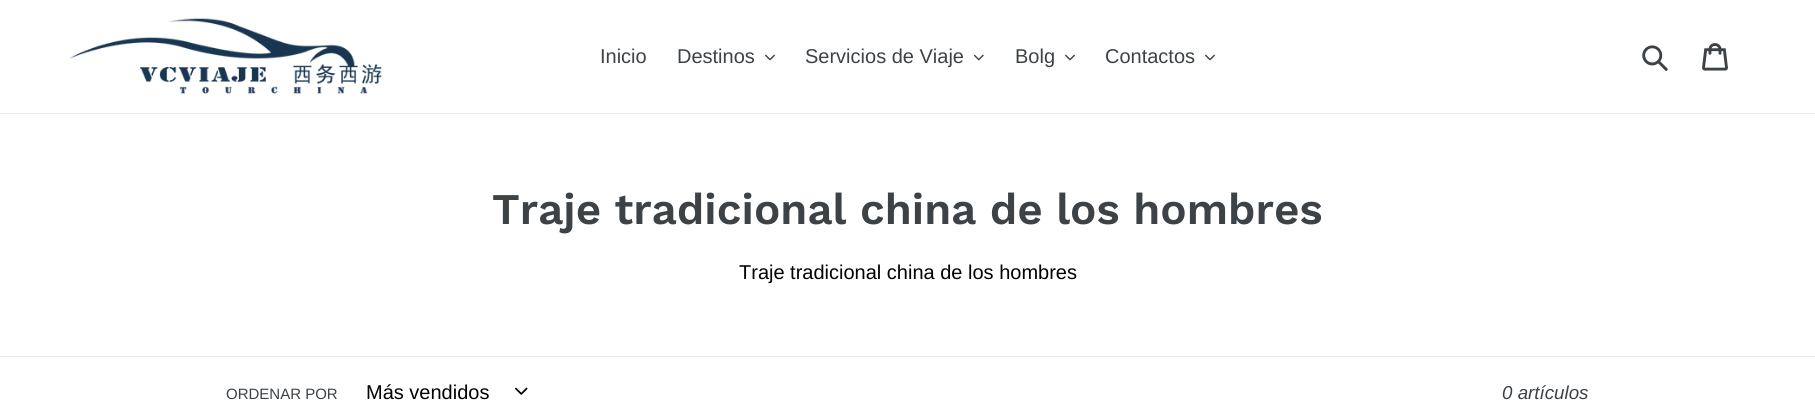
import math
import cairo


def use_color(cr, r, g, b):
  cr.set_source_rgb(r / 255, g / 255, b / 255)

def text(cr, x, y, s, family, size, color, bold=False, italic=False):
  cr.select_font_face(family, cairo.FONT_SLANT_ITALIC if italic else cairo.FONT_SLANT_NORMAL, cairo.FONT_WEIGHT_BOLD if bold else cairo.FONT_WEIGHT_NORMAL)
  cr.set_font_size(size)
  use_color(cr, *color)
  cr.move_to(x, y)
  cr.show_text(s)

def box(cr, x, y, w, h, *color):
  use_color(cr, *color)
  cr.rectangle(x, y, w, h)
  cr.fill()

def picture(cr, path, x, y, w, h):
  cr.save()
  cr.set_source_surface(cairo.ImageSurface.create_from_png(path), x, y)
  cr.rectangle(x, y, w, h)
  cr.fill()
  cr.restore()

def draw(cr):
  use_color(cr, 255, 255, 255)
  cr.paint()
  box(cr, 0, 113, 1815, 1, 232, 233, 235)
  picture(cr, "img_01.png", 69, 18, 313, 76)
  picture(cr, "img_02.png", 765, 54, 10, 7)
  picture(cr, "img_03.png", 974, 54, 10, 7)
  picture(cr, "img_02.png", 1065, 54, 10, 7)
  picture(cr, "img_02.png", 1205, 54, 10, 7)
  picture(cr, "img_04.png", 1642, 45, 26, 26)
  picture(cr, "img_05.png", 1702, 43, 26, 28)
  box(cr, 0, 356, 1815, 1, 232, 233, 235)
  picture(cr, "img_06.png", 515, 387, 13, 8)
  text(cr, 600, 63, "Inicio", "Liberation Sans", 20, (61, 66, 70))
  text(cr, 677, 63, "Destinos", "Liberation Sans", 20, (61, 66, 70))
  text(cr, 805, 63, "Servicios de Viaje", "Liberation Sans", 20, (61, 66, 70))
  text(cr, 1015, 63, "Bolg", "Liberation Sans", 20, (61, 66, 70))
  text(cr, 1105, 63, "Contactos", "Liberation Sans", 20, (61, 66, 70))
  text(cr, 492, 224, "Traje tradicional china de los hombres", "Work Sans SemiBold", 43.75, (61, 66, 70))
  text(cr, 739, 279, "Traje tradicional china de los hombres", "Liberation Sans", 20, (0, 0, 0))
  text(cr, 226, 399, "ORDENAR POR", "Liberation Sans", 15, (61, 66, 70))
  text(cr, 366, 399, "Más vendidos", "Liberation Sans", 20, (0, 0, 0))
  text(cr, 1502, 399, "0 artículos", "Liberation Sans", 18.75, (61, 66, 70), italic=True)


surface = cairo.ImageSurface(cairo.FORMAT_RGB24, 1815, 419)
cr = cairo.Context(surface)
options = cairo.FontOptions()
options.set_hint_metrics(cairo.HINT_METRICS_OFF)
options.set_hint_style(cairo.HINT_STYLE_NONE)
cr.set_font_options(options)
cr.set_miter_limit(4)
draw(cr)
surface.write_to_png("out.png")
